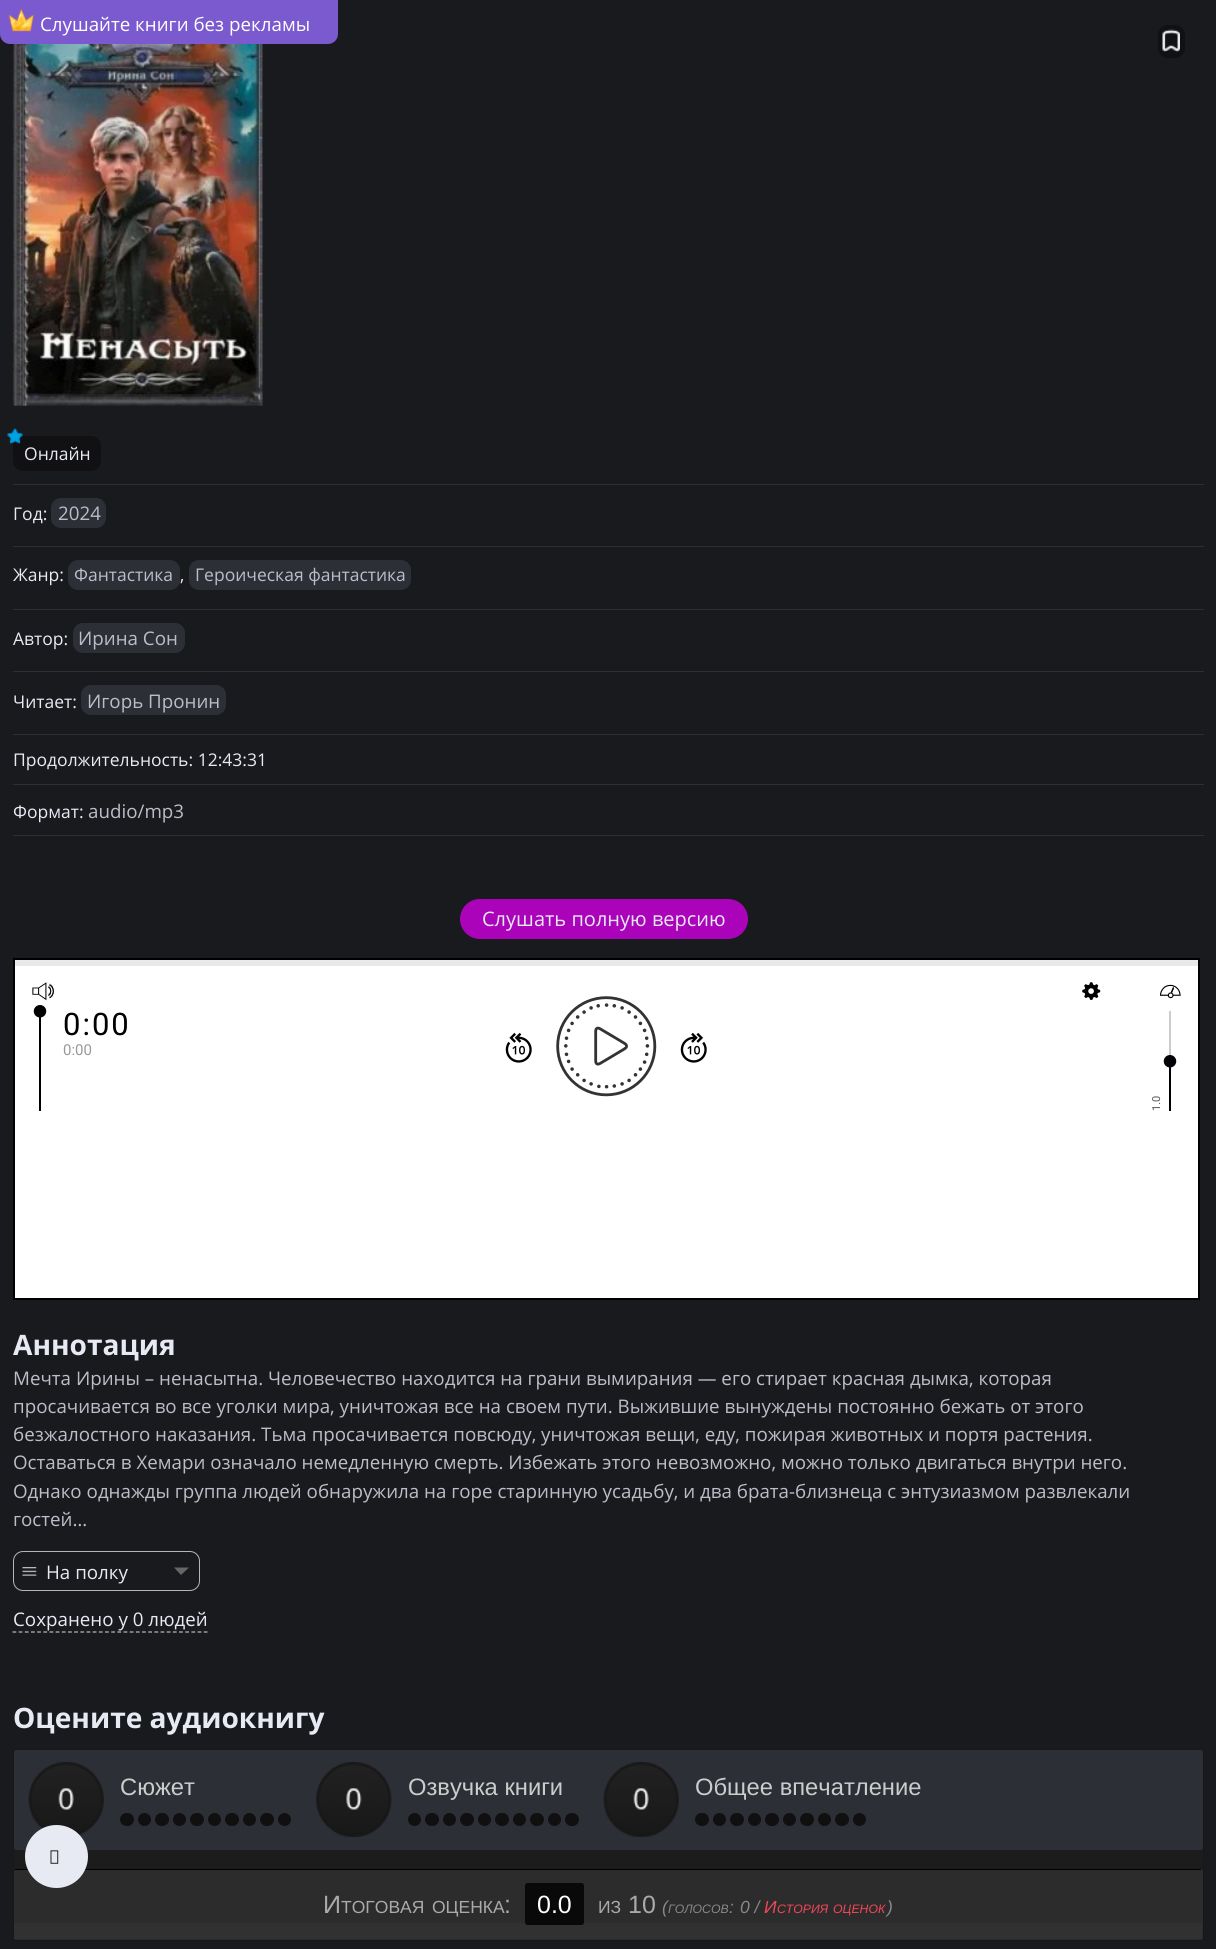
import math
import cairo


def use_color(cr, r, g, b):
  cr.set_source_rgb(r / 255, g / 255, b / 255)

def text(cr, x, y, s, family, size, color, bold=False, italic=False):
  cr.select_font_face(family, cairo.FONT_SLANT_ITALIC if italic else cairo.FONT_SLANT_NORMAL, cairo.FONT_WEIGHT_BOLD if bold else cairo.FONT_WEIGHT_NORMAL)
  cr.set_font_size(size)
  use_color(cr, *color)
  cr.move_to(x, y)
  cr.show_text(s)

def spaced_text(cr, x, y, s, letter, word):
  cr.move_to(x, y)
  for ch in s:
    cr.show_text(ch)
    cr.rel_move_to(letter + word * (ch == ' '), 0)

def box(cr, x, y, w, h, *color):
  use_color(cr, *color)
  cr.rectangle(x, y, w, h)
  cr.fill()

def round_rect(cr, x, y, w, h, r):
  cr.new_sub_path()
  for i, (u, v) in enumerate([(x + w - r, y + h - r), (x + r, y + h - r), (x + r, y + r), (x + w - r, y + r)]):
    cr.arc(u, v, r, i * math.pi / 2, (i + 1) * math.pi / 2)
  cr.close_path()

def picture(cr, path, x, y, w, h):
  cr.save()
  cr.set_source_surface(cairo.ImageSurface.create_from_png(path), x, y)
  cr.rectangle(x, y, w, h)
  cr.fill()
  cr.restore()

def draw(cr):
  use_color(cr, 25, 26, 29)
  cr.paint()
  use_color(cr, 123, 89, 206)
  cr.new_path()
  cr.move_to(0, 0)
  cr.line_to(338, 0)
  cr.line_to(338, 34)
  cr.curve_to(338, 39.5, 333.5, 44, 328, 44)
  cr.line_to(10, 44)
  cr.curve_to(4.5, 44, 0, 39.5, 0, 34)
  cr.close_path()
  cr.fill()
  picture(cr, "img_01.png", 8, 8, 26, 24)
  picture(cr, "img_02.png", 12, 44, 251, 362)
  use_color(cr, 17, 17, 19)
  round_rect(cr, 1158, 25, 27, 33, 10)
  cr.fill()
  picture(cr, "img_03.png", 1162, 29, 18, 23)
  round_rect(cr, 13, 436, 88, 35, 10)
  cr.fill()
  picture(cr, "img_04.png", 7, 428, 16, 16)
  box(cr, 13, 484, 1191, 1, 44, 47, 54)
  round_rect(cr, 51, 498, 55, 30, 10)
  cr.fill()
  box(cr, 13, 546, 1191, 1, 44, 47, 54)
  round_rect(cr, 68, 560, 112, 30, 10)
  cr.fill()
  round_rect(cr, 189, 560, 222, 30, 10)
  cr.fill()
  box(cr, 13, 609, 1191, 1, 44, 47, 54)
  round_rect(cr, 73, 623, 112, 30, 10)
  cr.fill()
  box(cr, 13, 671, 1191, 1, 44, 47, 54)
  round_rect(cr, 81, 685, 145, 30, 10)
  cr.fill()
  box(cr, 13, 734, 1191, 1, 44, 47, 54)
  box(cr, 13, 784, 1191, 1, 44, 47, 54)
  box(cr, 13, 835, 1191, 1, 44, 47, 54)
  use_color(cr, 171, 3, 186)
  round_rect(cr, 460, 899, 288, 40, 20)
  cr.fill()
  cr.rectangle(14.5, 959.5, 1184, 339)
  use_color(cr, 0, 0, 0)
  cr.set_line_width(3)
  cr.stroke()
  box(cr, 15, 960, 1183, 338, 255, 255, 255)
  use_color(cr, 233, 233, 233)
  round_rect(cr, 15, 960, 1183, 6, 1)
  cr.fill()
  picture(cr, "img_07.png", 48, 983, 1126, 16)
  picture(cr, "img_05.png", 32, 982, 22, 19)
  picture(cr, "img_06.png", 1082, 982, 19, 18)
  picture(cr, "img_08.png", 1159, 984, 22, 15)
  box(cr, 39, 1011, 2, 100, 0, 0, 0)
  picture(cr, "img_09.png", 33, 1005, 14, 13)
  picture(cr, "img_10.png", 556, 996, 101, 101)
  picture(cr, "img_11.png", 505, 1032, 27, 31)
  picture(cr, "img_12.png", 680, 1032, 27, 31)
  box(cr, 1169, 1011, 2, 45, 204, 204, 204)
  box(cr, 1169, 1061, 2, 50, 0, 0, 0)
  picture(cr, "img_13.png", 1163, 1055, 14, 13)
  round_rect(cr, 13.5, 1551.5, 186, 39, 9.5)
  use_color(cr, 182, 181, 181)
  cr.set_line_width(1)
  cr.stroke()
  picture(cr, "img_14.png", 22, 1567, 15, 9)
  use_color(cr, 102, 102, 102)
  cr.new_path()
  cr.move_to(174, 1567.5)
  cr.line_to(189, 1567.5)
  cr.line_to(181, 1575)
  cr.close_path()
  cr.fill()
  cr.new_path()
  cr.move_to(12.5, 1632)
  cr.line_to(207.5, 1632)
  use_color(cr, 187, 187, 187)
  cr.set_line_width(1.2)
  cr.set_dash([3.75, 2.42])
  cr.stroke()
  use_color(cr, 28, 28, 28)
  round_rect(cr, 13.5, 1749.5, 1190, 191, 2)
  cr.fill_preserve()
  use_color(cr, 24, 24, 24)
  cr.set_line_width(1)
  cr.set_dash([])
  cr.stroke()
  use_color(cr, 44, 47, 54)
  round_rect(cr, 14, 1750, 1189, 100, 2.5)
  cr.fill()
  picture(cr, "img_15.png", 28, 1762, 76, 74)
  use_color(cr, 16, 16, 16)
  round_rect(cr, 120, 1813, 14, 13, 6.5)
  cr.fill()
  cr.arc(144.5, 1819.5, 6.5, 0, 2 * math.pi)
  cr.fill()
  round_rect(cr, 155, 1813, 14, 13, 6.5)
  cr.fill()
  cr.arc(179.5, 1819.5, 6.5, 0, 2 * math.pi)
  cr.fill()
  round_rect(cr, 190, 1813, 14, 13, 6.5)
  cr.fill()
  cr.arc(214.5, 1819.5, 6.5, 0, 2 * math.pi)
  cr.fill()
  round_rect(cr, 225, 1813, 14, 13, 6.5)
  cr.fill()
  cr.arc(249.5, 1819.5, 6.5, 0, 2 * math.pi)
  cr.fill()
  round_rect(cr, 260, 1813, 14, 13, 6.5)
  cr.fill()
  cr.arc(284.5, 1819.5, 6.5, 0, 2 * math.pi)
  cr.fill()
  picture(cr, "img_16.png", 316, 1762, 76, 75)
  cr.arc(414.5, 1819.5, 6.5, 0, 2 * math.pi)
  cr.fill()
  round_rect(cr, 425, 1813, 14, 13, 6.5)
  cr.fill()
  cr.arc(449.5, 1819.5, 6.5, 0, 2 * math.pi)
  cr.fill()
  round_rect(cr, 460, 1813, 14, 13, 6.5)
  cr.fill()
  cr.arc(484.5, 1819.5, 6.5, 0, 2 * math.pi)
  cr.fill()
  round_rect(cr, 495, 1813, 14, 13, 6.5)
  cr.fill()
  cr.arc(519.5, 1819.5, 6.5, 0, 2 * math.pi)
  cr.fill()
  round_rect(cr, 530, 1813, 14, 13, 6.5)
  cr.fill()
  cr.arc(554.5, 1819.5, 6.5, 0, 2 * math.pi)
  cr.fill()
  round_rect(cr, 565, 1813, 14, 13, 6.5)
  cr.fill()
  picture(cr, "img_17.png", 603, 1762, 76, 75)
  round_rect(cr, 695, 1813, 14, 13, 6.5)
  cr.fill()
  cr.arc(719.5, 1819.5, 6.5, 0, 2 * math.pi)
  cr.fill()
  round_rect(cr, 730, 1813, 14, 13, 6.5)
  cr.fill()
  cr.arc(754.5, 1819.5, 6.5, 0, 2 * math.pi)
  cr.fill()
  round_rect(cr, 765, 1813, 14, 13, 6.5)
  cr.fill()
  cr.arc(789.5, 1819.5, 6.5, 0, 2 * math.pi)
  cr.fill()
  round_rect(cr, 800, 1813, 14, 13, 6.5)
  cr.fill()
  cr.arc(824.5, 1819.5, 6.5, 0, 2 * math.pi)
  cr.fill()
  round_rect(cr, 835, 1813, 14, 13, 6.5)
  cr.fill()
  cr.arc(859.5, 1819.5, 6.5, 0, 2 * math.pi)
  cr.fill()
  use_color(cr, 44, 44, 44)
  round_rect(cr, 14, 1869, 1189, 71, 2.5)
  cr.fill()
  box(cr, 14, 1923, 1188, 16, 49, 49, 49)
  box(cr, 15, 1869, 1186, 1, 0, 0, 0)
  use_color(cr, 9, 9, 9)
  round_rect(cr, 525, 1883, 59, 42, 2.5)
  cr.fill()
  use_color(cr, 232, 234, 243)
  cr.arc(56.5, 1856.5, 31.5, 0, 2 * math.pi)
  cr.fill()
  picture(cr, "img_18.png", 50, 1850, 9, 14)
  text(cr, 40, 31, "Слушайте книги без рекламы", "Open Sans", 18.75, (255, 255, 255))
  text(cr, 24, 460, "Онлайн", "Open Sans", 17.5, (231, 234, 243))
  text(cr, 13, 520, "Год:", "Open Sans", 17.5, (231, 234, 243))
  text(cr, 58, 520, "2024", "Open Sans", 18.75, (187, 189, 200))
  text(cr, 13, 581, "Жанр:", "Open Sans", 17.5, (231, 234, 243))
  text(cr, 74, 581, "Фантастика", "Open Sans", 17.5, (187, 189, 200))
  text(cr, 180, 581, ",", "Open Sans", 17.5, (231, 234, 243))
  text(cr, 195, 581, "Героическая фантастика", "Open Sans", 17.5, (187, 189, 200))
  text(cr, 13, 645, "Автор:", "Open Sans", 17.5, (231, 234, 243))
  text(cr, 78, 645, "Ирина Сон", "Open Sans", 18.75, (187, 189, 200))
  text(cr, 13, 708, "Читает:", "Open Sans", 17.5, (231, 234, 243))
  text(cr, 87, 708, "Игорь Пронин", "Open Sans", 18.75, (187, 189, 200))
  text(cr, 13, 766, "Продолжительность: 12:43:31", "Open Sans", 17.5, (231, 234, 243))
  text(cr, 13, 818, "Формат:", "Open Sans", 17.5, (231, 234, 243))
  text(cr, 88, 818, "audio/mp3", "Open Sans", 18.75, (187, 189, 200))
  text(cr, 482, 926, "Слушать полную версию", "Open Sans", 20, (231, 234, 243))
  cr.select_font_face("Roboto")
  cr.set_font_size(31)
  use_color(cr, 0, 0, 0)
  spaced_text(cr, 63, 1035, "0:00", 2, 0)
  text(cr, 63, 1055, "0:00", "Roboto", 15, (153, 153, 153))
  cr.save()
  cr.translate(1160, 1111)
  cr.rotate(-90 * math.pi / 180)
  text(cr, 0, 0, "1.0", "Roboto", 11, (87, 87, 87))
  cr.restore()
  text(cr, 13, 1355, "Аннотация", "Open Sans", 28.1, (231, 234, 243), bold=True)
  text(cr, 13, 1385, "Мечта Ирины – ненасытна. Человечество находится на грани вымирания — его стирает красная дымка, которая", "Open Sans", 18.75, (187, 189, 200))
  text(cr, 13, 1413, "просачивается во все уголки мира, уничтожая все на своем пути. Выжившие вынуждены постоянно бежать от этого", "Open Sans", 18.75, (187, 189, 200))
  text(cr, 13, 1441, "безжалостного наказания. Тьма просачивается повсюду, уничтожая вещи, еду, пожирая животных и портя растения.", "Open Sans", 18.75, (187, 189, 200))
  text(cr, 13, 1469, "Оставаться в Хемари означало немедленную смерть. Избежать этого невозможно, можно только двигаться внутри него.", "Open Sans", 18.75, (187, 189, 200))
  text(cr, 13, 1498, "Однако однажды группа людей обнаружила на горе старинную усадьбу, и два брата-близнеца с энтузиазмом развлекали", "Open Sans", 18.75, (187, 189, 200))
  text(cr, 13, 1526, "гостей…", "Open Sans", 18.75, (187, 189, 200))
  text(cr, 46, 1579, "На полку", "Open Sans", 18.75, (231, 234, 243))
  text(cr, 13, 1626, "Сохранено у 0 людей", "Open Sans", 18.75, (231, 234, 243))
  text(cr, 13, 1728, "Оцените аудиокнигу", "Open Sans", 28.1, (231, 234, 243), bold=True)
  text(cr, 120, 1795, "Сюжет", "Liberation Sans", 23.75, (204, 204, 204))
  text(cr, 408, 1795, "Озвучка книги", "Liberation Sans", 23.75, (204, 204, 204))
  text(cr, 695, 1795, "Общее впечатление", "Liberation Sans", 23.75, (204, 204, 204))
  text(cr, 323, 1913, "И", "Liberation Sans", 25, (170, 170, 170))
  text(cr, 341, 1913, "ТОГОВАЯ", "Liberation Sans", 17.5, (170, 170, 170))
  text(cr, 432, 1913, "ОЦЕНКА", "Liberation Sans", 17.5, (170, 170, 170))
  text(cr, 504, 1913, ":", "Liberation Sans", 25, (170, 170, 170))
  text(cr, 537, 1913, "0.0", "Liberation Sans", 25, (255, 255, 255))
  text(cr, 598, 1913, "ИЗ", "Liberation Sans", 17.5, (170, 170, 170))
  text(cr, 628, 1913, "10", "Liberation Sans", 25, (170, 170, 170))
  text(cr, 662, 1913, "(", "Liberation Sans", 17.5, (136, 136, 136), italic=True)
  text(cr, 668, 1913, "ГОЛОСОВ", "Liberation Sans", 12.25, (136, 136, 136), italic=True)
  text(cr, 729, 1913, ":", "Liberation Sans", 17.5, (136, 136, 136), italic=True)
  text(cr, 740, 1913, "0 /", "Liberation Sans", 17.5, (136, 136, 136), italic=True)
  text(cr, 764, 1913, "И", "Liberation Sans", 17.5, (245, 70, 88), italic=True)
  text(cr, 777, 1913, "СТОРИЯ", "Liberation Sans", 12.25, (245, 70, 88), italic=True)
  text(cr, 833, 1913, "ОЦЕНОК", "Liberation Sans", 12.25, (245, 70, 88), italic=True)
  text(cr, 887, 1913, ")", "Liberation Sans", 17.5, (136, 136, 136), italic=True)


surface = cairo.ImageSurface(cairo.FORMAT_RGB24, 1216, 1949)
cr = cairo.Context(surface)
options = cairo.FontOptions()
options.set_hint_metrics(cairo.HINT_METRICS_OFF)
options.set_hint_style(cairo.HINT_STYLE_NONE)
cr.set_font_options(options)
cr.set_miter_limit(4)
draw(cr)
surface.write_to_png("out.png")
